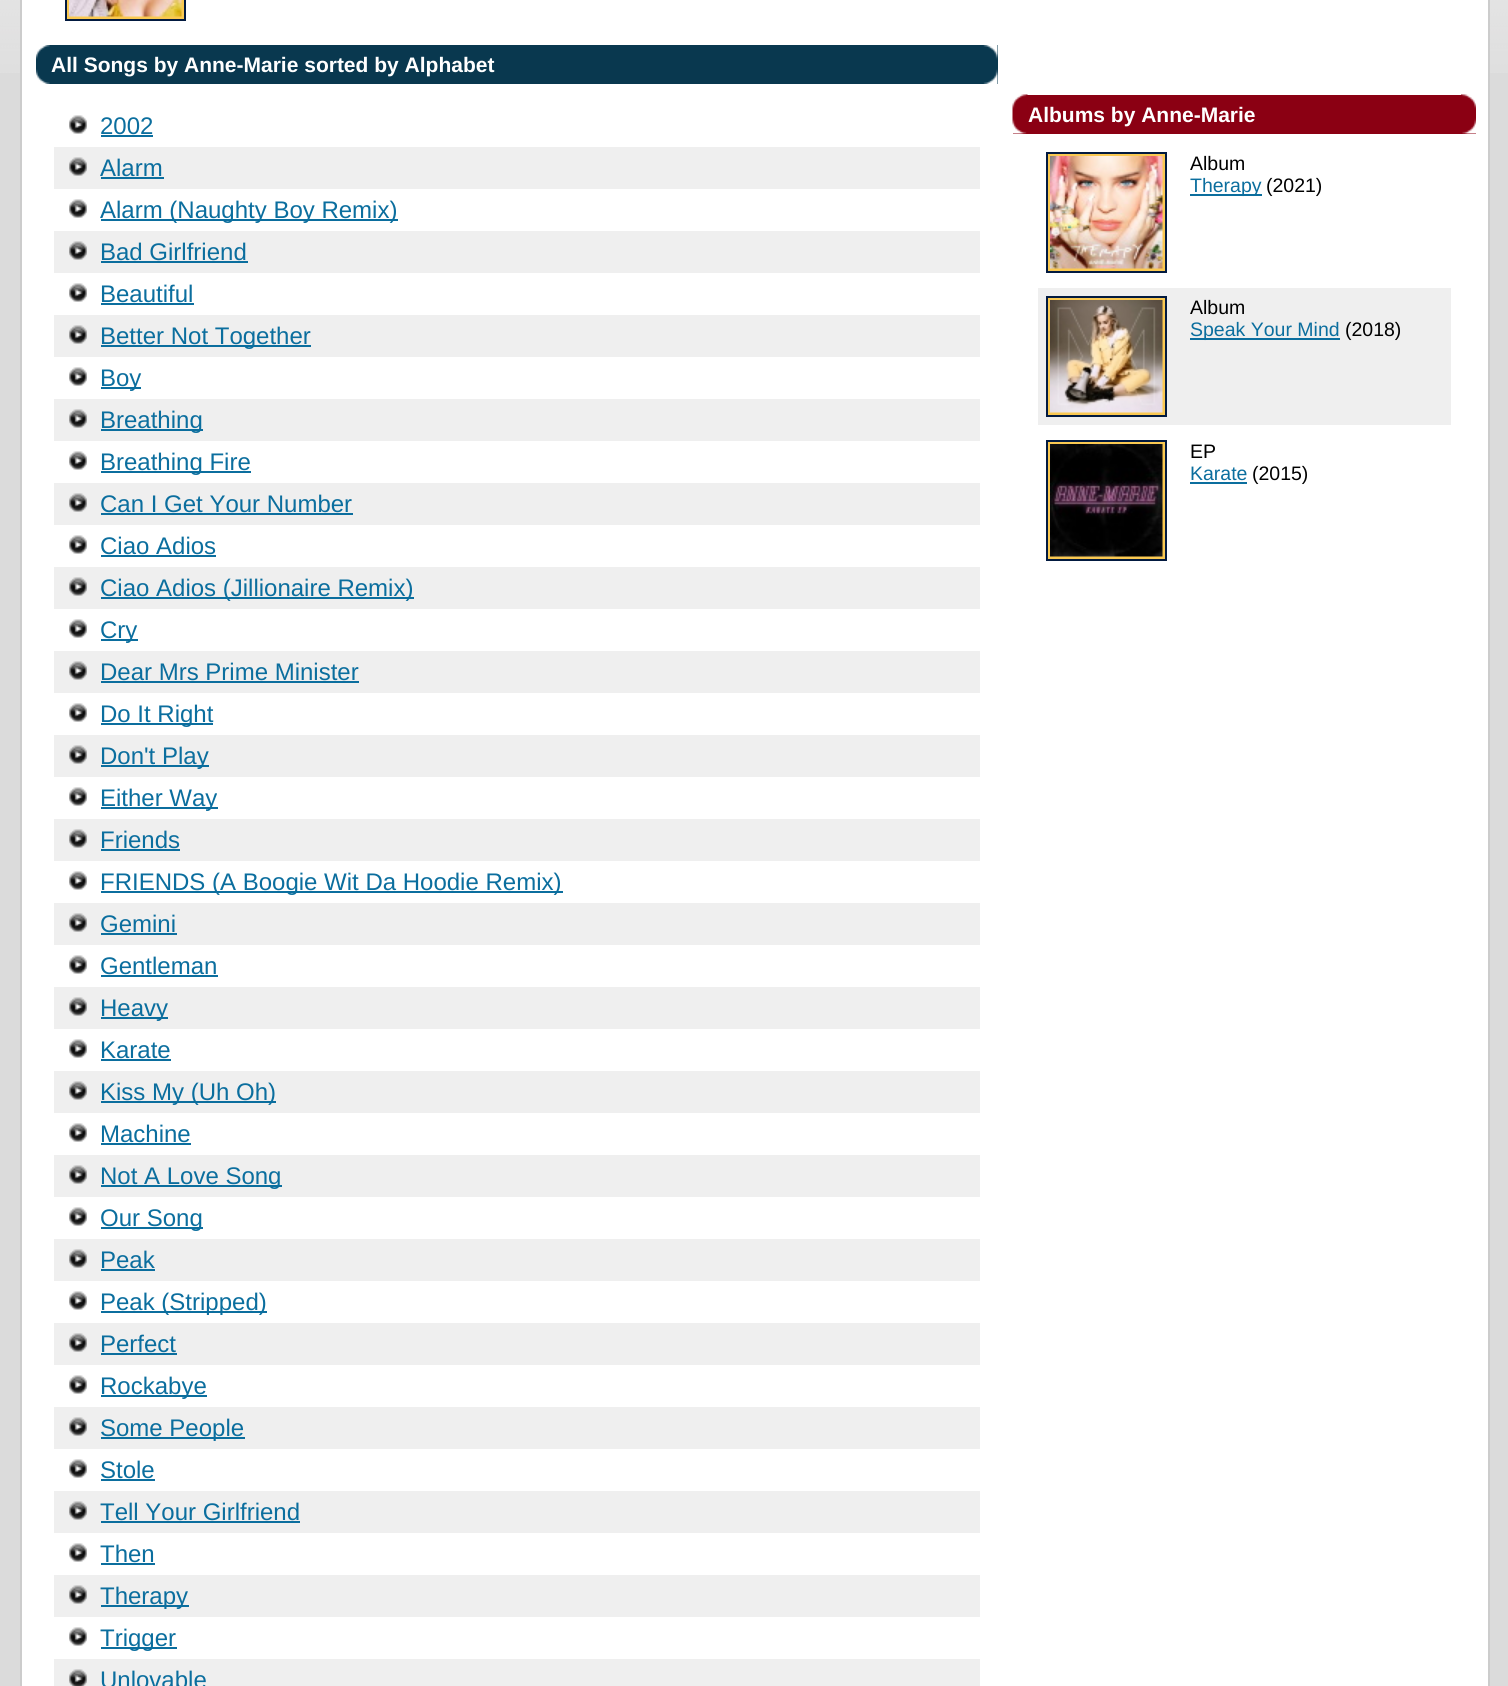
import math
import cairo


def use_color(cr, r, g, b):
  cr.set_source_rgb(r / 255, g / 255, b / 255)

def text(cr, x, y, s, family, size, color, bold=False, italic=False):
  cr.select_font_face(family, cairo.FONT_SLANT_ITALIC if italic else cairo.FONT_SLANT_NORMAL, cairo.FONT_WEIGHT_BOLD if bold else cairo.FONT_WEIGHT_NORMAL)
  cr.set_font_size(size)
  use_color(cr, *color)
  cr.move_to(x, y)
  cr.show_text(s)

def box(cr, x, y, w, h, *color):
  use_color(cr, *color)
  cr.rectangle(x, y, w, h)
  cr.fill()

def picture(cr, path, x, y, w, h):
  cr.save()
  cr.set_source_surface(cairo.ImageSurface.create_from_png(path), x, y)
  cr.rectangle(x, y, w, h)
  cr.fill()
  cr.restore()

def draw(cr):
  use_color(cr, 219, 219, 219)
  cr.paint()
  picture(cr, "img_01.png", 0, 0, 1508, 73)
  box(cr, 22, 0, 1466, 1686, 255, 255, 255)
  box(cr, 1488, 0, 2, 1686, 204, 204, 204)
  box(cr, 20, 0, 2, 1686, 204, 204, 204)
  use_color(cr, 250, 201, 82)
  cr.rectangle(66, -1, 119, 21)
  cr.fill_preserve()
  use_color(cr, 2, 26, 64)
  cr.stroke()
  picture(cr, "img_02.png", 69, 0, 113, 17)
  box(cr, 50, 45, 948, 39, 9, 56, 79)
  picture(cr, "img_03.png", 36, 45, 14, 39)
  picture(cr, "img_04.png", 983, 45, 15, 39)
  picture(cr, "img_05.png", 69, 115, 18, 19)
  box(cr, 101, 135, 52, 2, 11, 110, 158)
  box(cr, 54, 147, 926, 42, 239, 239, 239)
  picture(cr, "img_06.png", 69, 157, 18, 19)
  box(cr, 101, 177, 63, 2, 11, 110, 158)
  picture(cr, "img_05.png", 69, 199, 18, 19)
  box(cr, 101, 219, 297, 2, 11, 110, 158)
  box(cr, 54, 231, 926, 42, 239, 239, 239)
  picture(cr, "img_06.png", 69, 241, 18, 19)
  box(cr, 101, 261, 147, 2, 11, 110, 158)
  picture(cr, "img_05.png", 69, 283, 18, 19)
  box(cr, 101, 303, 93, 2, 11, 110, 158)
  box(cr, 54, 315, 926, 42, 239, 239, 239)
  picture(cr, "img_06.png", 69, 325, 18, 19)
  box(cr, 101, 345, 210, 2, 11, 110, 158)
  picture(cr, "img_05.png", 69, 367, 18, 19)
  box(cr, 101, 387, 40, 2, 11, 110, 158)
  box(cr, 54, 399, 926, 42, 239, 239, 239)
  picture(cr, "img_06.png", 69, 409, 18, 19)
  box(cr, 101, 429, 102, 2, 11, 110, 158)
  picture(cr, "img_05.png", 69, 451, 18, 19)
  box(cr, 101, 471, 150, 2, 11, 110, 158)
  box(cr, 54, 483, 926, 42, 239, 239, 239)
  picture(cr, "img_06.png", 69, 493, 18, 19)
  box(cr, 101, 513, 252, 2, 11, 110, 158)
  picture(cr, "img_05.png", 69, 535, 18, 19)
  box(cr, 101, 555, 115, 2, 11, 110, 158)
  box(cr, 54, 567, 926, 42, 239, 239, 239)
  picture(cr, "img_06.png", 69, 577, 18, 19)
  box(cr, 101, 597, 313, 2, 11, 110, 158)
  picture(cr, "img_05.png", 69, 619, 18, 19)
  box(cr, 101, 639, 37, 2, 11, 110, 158)
  box(cr, 54, 651, 926, 42, 239, 239, 239)
  picture(cr, "img_06.png", 69, 661, 18, 19)
  box(cr, 101, 681, 258, 2, 11, 110, 158)
  picture(cr, "img_05.png", 69, 703, 18, 19)
  box(cr, 101, 723, 112, 2, 11, 110, 158)
  box(cr, 54, 735, 926, 42, 239, 239, 239)
  picture(cr, "img_06.png", 69, 745, 18, 19)
  box(cr, 101, 765, 108, 2, 11, 110, 158)
  picture(cr, "img_05.png", 69, 787, 18, 19)
  box(cr, 101, 807, 117, 2, 11, 110, 158)
  box(cr, 54, 819, 926, 42, 239, 239, 239)
  picture(cr, "img_06.png", 69, 829, 18, 19)
  box(cr, 101, 849, 79, 2, 11, 110, 158)
  picture(cr, "img_05.png", 69, 871, 18, 19)
  box(cr, 101, 891, 462, 2, 11, 110, 158)
  box(cr, 54, 903, 926, 42, 239, 239, 239)
  picture(cr, "img_06.png", 69, 913, 18, 19)
  box(cr, 101, 933, 76, 2, 11, 110, 158)
  picture(cr, "img_05.png", 69, 955, 18, 19)
  box(cr, 101, 975, 117, 2, 11, 110, 158)
  box(cr, 54, 987, 926, 42, 239, 239, 239)
  picture(cr, "img_06.png", 69, 997, 18, 19)
  box(cr, 101, 1017, 67, 2, 11, 110, 158)
  picture(cr, "img_05.png", 69, 1039, 18, 19)
  box(cr, 101, 1059, 70, 2, 11, 110, 158)
  box(cr, 54, 1071, 926, 42, 239, 239, 239)
  picture(cr, "img_06.png", 69, 1081, 18, 19)
  box(cr, 101, 1101, 175, 2, 11, 110, 158)
  picture(cr, "img_05.png", 69, 1123, 18, 19)
  box(cr, 101, 1143, 90, 2, 11, 110, 158)
  box(cr, 54, 1155, 926, 42, 239, 239, 239)
  picture(cr, "img_06.png", 69, 1165, 18, 19)
  box(cr, 101, 1185, 181, 2, 11, 110, 158)
  picture(cr, "img_05.png", 69, 1207, 18, 19)
  box(cr, 101, 1227, 102, 2, 11, 110, 158)
  box(cr, 54, 1239, 926, 42, 239, 239, 239)
  picture(cr, "img_06.png", 69, 1249, 18, 19)
  box(cr, 101, 1269, 54, 2, 11, 110, 158)
  picture(cr, "img_05.png", 69, 1291, 18, 19)
  box(cr, 101, 1311, 166, 2, 11, 110, 158)
  box(cr, 54, 1323, 926, 42, 239, 239, 239)
  picture(cr, "img_06.png", 69, 1333, 18, 19)
  box(cr, 101, 1353, 76, 2, 11, 110, 158)
  picture(cr, "img_05.png", 69, 1375, 18, 19)
  box(cr, 101, 1395, 106, 2, 11, 110, 158)
  box(cr, 54, 1407, 926, 42, 239, 239, 239)
  picture(cr, "img_06.png", 69, 1417, 18, 19)
  box(cr, 101, 1437, 144, 2, 11, 110, 158)
  picture(cr, "img_05.png", 69, 1459, 18, 19)
  box(cr, 101, 1479, 54, 2, 11, 110, 158)
  box(cr, 54, 1491, 926, 42, 239, 239, 239)
  picture(cr, "img_06.png", 69, 1501, 18, 19)
  box(cr, 101, 1521, 199, 2, 11, 110, 158)
  picture(cr, "img_05.png", 69, 1543, 18, 19)
  box(cr, 101, 1563, 54, 2, 11, 110, 158)
  box(cr, 54, 1575, 926, 42, 239, 239, 239)
  picture(cr, "img_06.png", 69, 1585, 18, 19)
  box(cr, 101, 1605, 88, 2, 11, 110, 158)
  picture(cr, "img_05.png", 69, 1627, 18, 19)
  box(cr, 101, 1647, 76, 2, 11, 110, 158)
  box(cr, 54, 1659, 926, 27, 239, 239, 239)
  picture(cr, "img_07.png", 69, 1669, 18, 17)
  box(cr, 1013, 95, 463, 39, 139, 0, 19)
  picture(cr, "img_08.png", 1012, 94, 16, 40)
  picture(cr, "img_09.png", 1461, 94, 15, 40)
  use_color(cr, 250, 201, 82)
  cr.rectangle(1047, 153, 119, 119)
  cr.fill_preserve()
  use_color(cr, 2, 26, 64)
  cr.stroke()
  picture(cr, "img_10.png", 1050, 156, 113, 113)
  box(cr, 1190, 194, 72, 2, 11, 110, 158)
  box(cr, 1038, 288, 413, 137, 239, 239, 239)
  use_color(cr, 250, 201, 82)
  cr.rectangle(1047, 297, 119, 119)
  cr.fill_preserve()
  use_color(cr, 2, 26, 64)
  cr.stroke()
  picture(cr, "img_11.png", 1050, 300, 113, 113)
  box(cr, 1190, 338, 150, 2, 11, 110, 158)
  use_color(cr, 250, 201, 82)
  cr.rectangle(1047, 441, 119, 119)
  cr.fill_preserve()
  use_color(cr, 2, 26, 64)
  cr.stroke()
  picture(cr, "img_12.png", 1050, 444, 113, 113)
  box(cr, 1190, 482, 57, 2, 11, 110, 158)
  text(cr, 51, 72, "All Songs by Anne-Marie sorted by Alphabet", "Liberation Sans", 21, (255, 255, 255), bold=True)
  text(cr, 100, 134, "2002", "Liberation Sans", 24, (11, 110, 158))
  text(cr, 100, 176, "Alarm", "Liberation Sans", 24, (11, 110, 158))
  text(cr, 100, 218, "Alarm (Naughty Boy Remix)", "Liberation Sans", 24, (11, 110, 158))
  text(cr, 100, 260, "Bad Girlfriend", "Liberation Sans", 24, (11, 110, 158))
  text(cr, 100, 302, "Beautiful", "Liberation Sans", 24, (11, 110, 158))
  text(cr, 100, 344, "Better Not Together", "Liberation Sans", 24, (11, 110, 158))
  text(cr, 100, 386, "Boy", "Liberation Sans", 24, (11, 110, 158))
  text(cr, 100, 428, "Breathing", "Liberation Sans", 24, (11, 110, 158))
  text(cr, 100, 470, "Breathing Fire", "Liberation Sans", 24, (11, 110, 158))
  text(cr, 100, 512, "Can I Get Your Number", "Liberation Sans", 24, (11, 110, 158))
  text(cr, 100, 554, "Ciao Adios", "Liberation Sans", 24, (11, 110, 158))
  text(cr, 100, 596, "Ciao Adios (Jillionaire Remix)", "Liberation Sans", 24, (11, 110, 158))
  text(cr, 100, 638, "Cry", "Liberation Sans", 24, (11, 110, 158))
  text(cr, 100, 680, "Dear Mrs Prime Minister", "Liberation Sans", 24, (11, 110, 158))
  text(cr, 100, 722, "Do It Right", "Liberation Sans", 24, (11, 110, 158))
  text(cr, 100, 764, "Don't Play", "Liberation Sans", 24, (11, 110, 158))
  text(cr, 100, 806, "Either Way", "Liberation Sans", 24, (11, 110, 158))
  text(cr, 100, 848, "Friends", "Liberation Sans", 24, (11, 110, 158))
  text(cr, 100, 890, "FRIENDS (A Boogie Wit Da Hoodie Remix)", "Liberation Sans", 24, (11, 110, 158))
  text(cr, 100, 932, "Gemini", "Liberation Sans", 24, (11, 110, 158))
  text(cr, 100, 974, "Gentleman", "Liberation Sans", 24, (11, 110, 158))
  text(cr, 100, 1016, "Heavy", "Liberation Sans", 24, (11, 110, 158))
  text(cr, 100, 1058, "Karate", "Liberation Sans", 24, (11, 110, 158))
  text(cr, 100, 1100, "Kiss My (Uh Oh)", "Liberation Sans", 24, (11, 110, 158))
  text(cr, 100, 1142, "Machine", "Liberation Sans", 24, (11, 110, 158))
  text(cr, 100, 1184, "Not A Love Song", "Liberation Sans", 24, (11, 110, 158))
  text(cr, 100, 1226, "Our Song", "Liberation Sans", 24, (11, 110, 158))
  text(cr, 100, 1268, "Peak", "Liberation Sans", 24, (11, 110, 158))
  text(cr, 100, 1310, "Peak (Stripped)", "Liberation Sans", 24, (11, 110, 158))
  text(cr, 100, 1352, "Perfect", "Liberation Sans", 24, (11, 110, 158))
  text(cr, 100, 1394, "Rockabye", "Liberation Sans", 24, (11, 110, 158))
  text(cr, 100, 1436, "Some People", "Liberation Sans", 24, (11, 110, 158))
  text(cr, 100, 1478, "Stole", "Liberation Sans", 24, (11, 110, 158))
  text(cr, 100, 1520, "Tell Your Girlfriend", "Liberation Sans", 24, (11, 110, 158))
  text(cr, 100, 1562, "Then", "Liberation Sans", 24, (11, 110, 158))
  text(cr, 100, 1604, "Therapy", "Liberation Sans", 24, (11, 110, 158))
  text(cr, 100, 1646, "Trigger", "Liberation Sans", 24, (11, 110, 158))
  text(cr, 100, 1688, "Unlovable", "Liberation Sans", 24, (11, 110, 158))
  text(cr, 1028, 122, "Albums by Anne-Marie", "Liberation Sans", 21, (255, 255, 255), bold=True)
  text(cr, 1190, 170, "Album", "Liberation Sans", 19.5, (0, 0, 0))
  text(cr, 1190, 192, "Therapy", "Liberation Sans", 19.5, (11, 110, 158))
  text(cr, 1266, 192, "(2021)", "Liberation Sans", 19.5, (0, 0, 0))
  text(cr, 1190, 314, "Album", "Liberation Sans", 19.5, (0, 0, 0))
  text(cr, 1190, 336, "Speak Your Mind", "Liberation Sans", 19.5, (11, 110, 158))
  text(cr, 1345, 336, "(2018)", "Liberation Sans", 19.5, (0, 0, 0))
  text(cr, 1190, 458, "EP", "Liberation Sans", 19.5, (0, 0, 0))
  text(cr, 1190, 480, "Karate", "Liberation Sans", 19.5, (11, 110, 158))
  text(cr, 1252, 480, "(2015)", "Liberation Sans", 19.5, (0, 0, 0))


surface = cairo.ImageSurface(cairo.FORMAT_RGB24, 1508, 1686)
cr = cairo.Context(surface)
options = cairo.FontOptions()
options.set_hint_metrics(cairo.HINT_METRICS_OFF)
options.set_hint_style(cairo.HINT_STYLE_NONE)
cr.set_font_options(options)
cr.set_miter_limit(4)
draw(cr)
surface.write_to_png("out.png")
